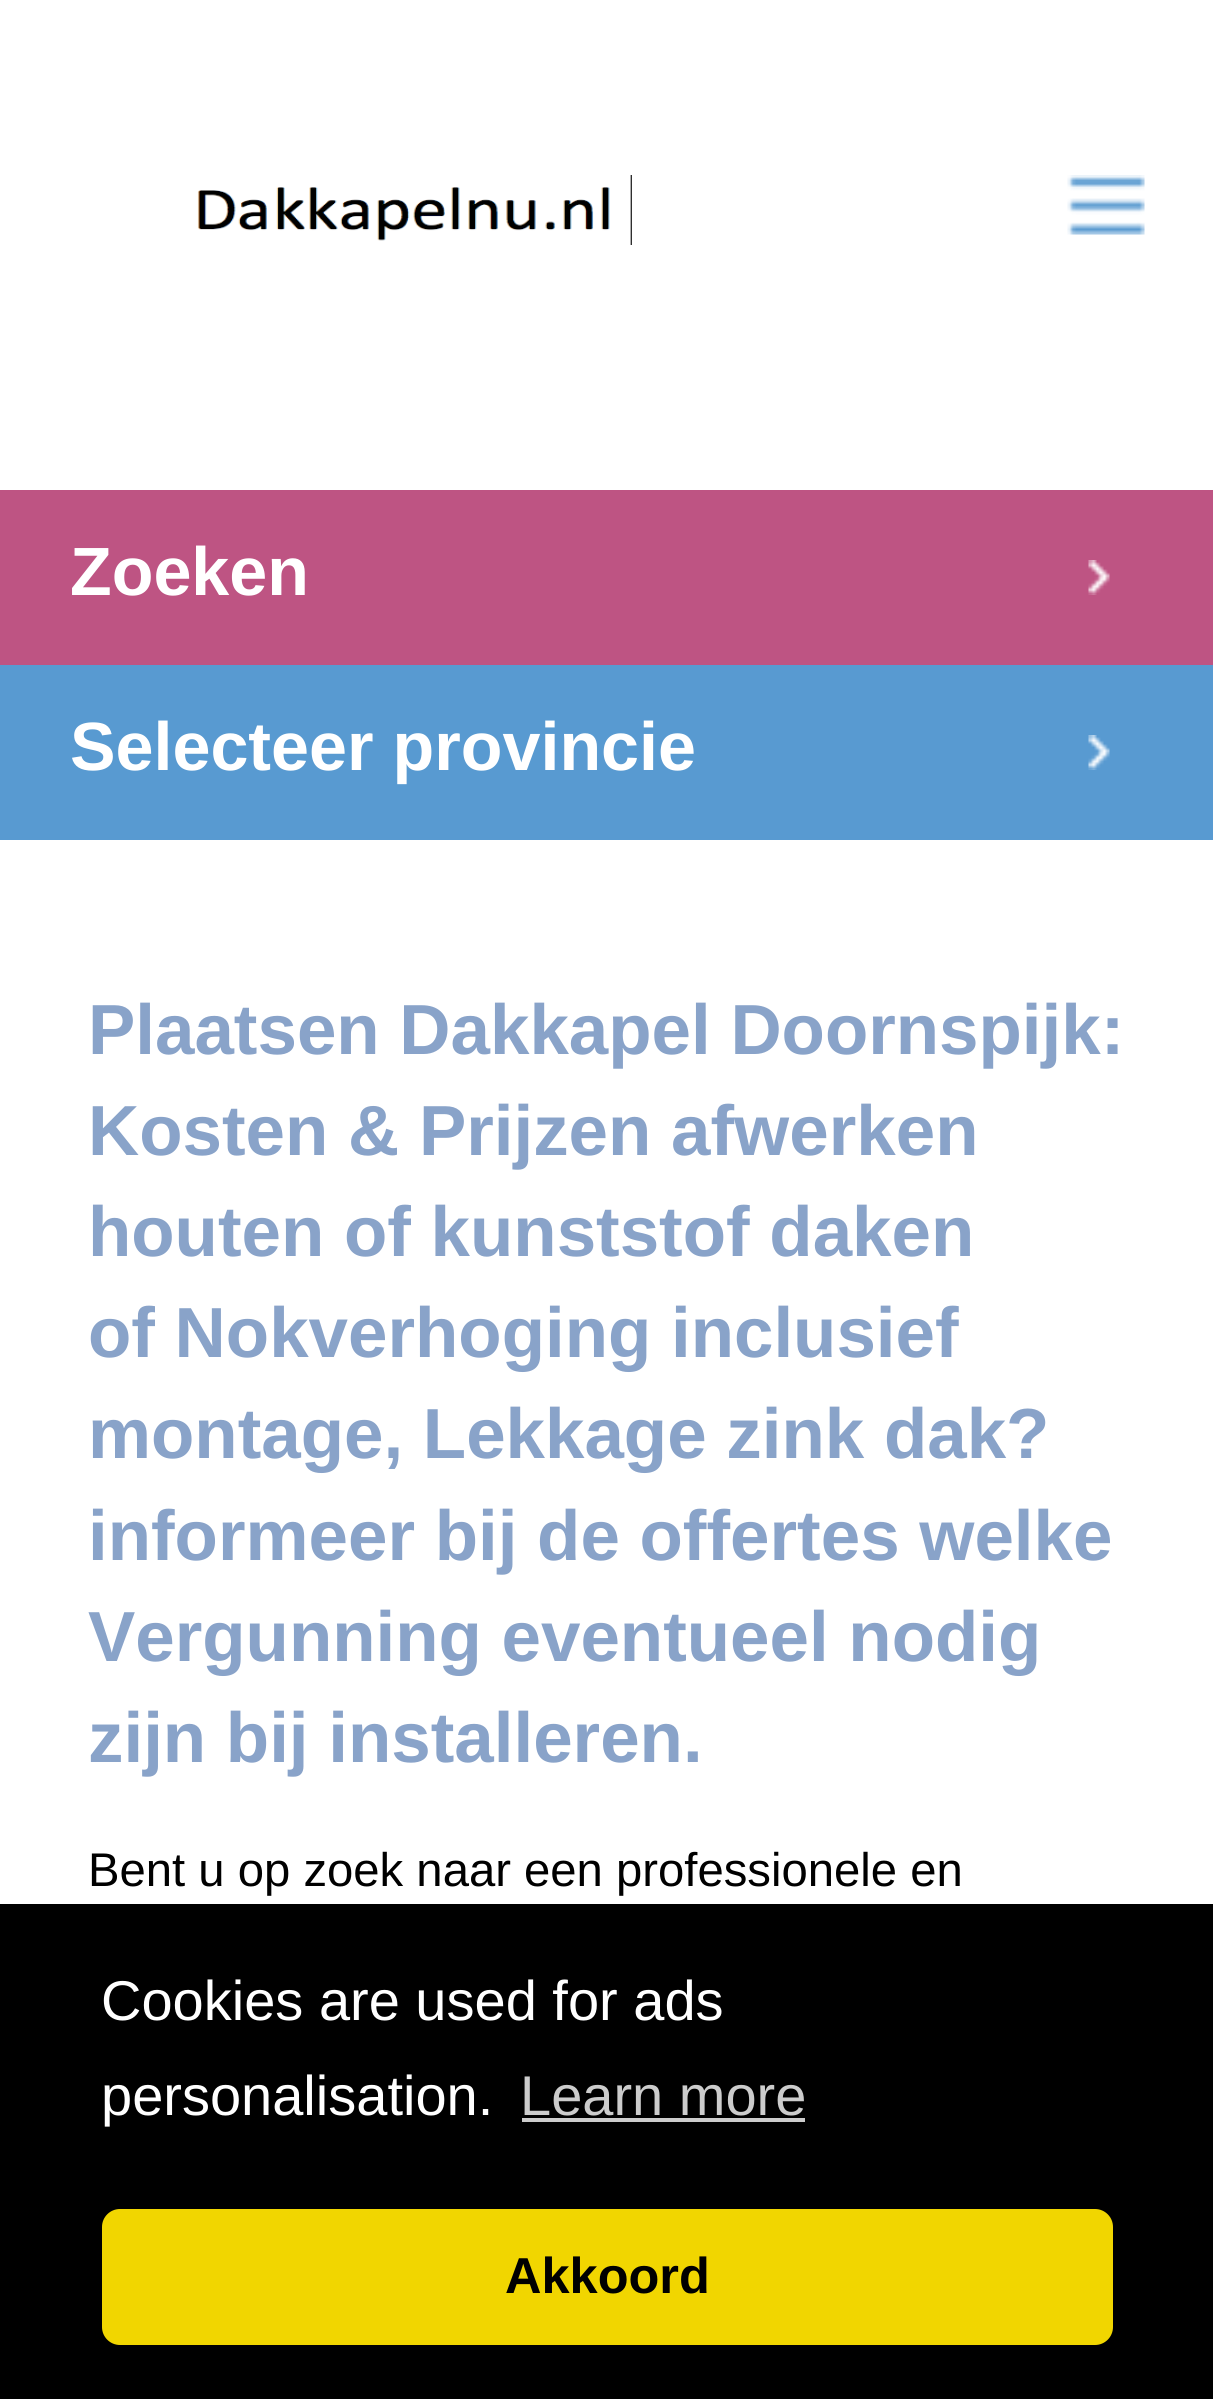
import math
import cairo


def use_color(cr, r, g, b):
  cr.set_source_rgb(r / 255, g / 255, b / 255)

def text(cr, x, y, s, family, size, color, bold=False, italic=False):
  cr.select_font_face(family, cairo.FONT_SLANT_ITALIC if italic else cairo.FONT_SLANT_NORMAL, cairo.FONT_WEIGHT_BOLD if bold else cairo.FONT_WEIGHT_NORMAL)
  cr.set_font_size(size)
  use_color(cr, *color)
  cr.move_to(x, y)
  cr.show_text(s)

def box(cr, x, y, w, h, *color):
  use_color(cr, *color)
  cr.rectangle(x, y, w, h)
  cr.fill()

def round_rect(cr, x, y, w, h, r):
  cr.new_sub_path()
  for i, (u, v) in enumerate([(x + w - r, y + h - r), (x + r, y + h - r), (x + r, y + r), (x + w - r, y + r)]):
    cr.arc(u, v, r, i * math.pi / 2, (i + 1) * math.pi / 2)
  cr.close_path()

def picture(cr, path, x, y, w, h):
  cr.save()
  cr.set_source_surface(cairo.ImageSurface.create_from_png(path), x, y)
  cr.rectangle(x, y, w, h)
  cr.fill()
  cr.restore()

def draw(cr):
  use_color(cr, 255, 255, 255)
  cr.paint()
  picture(cr, "img_01.png", 197, 175, 435, 70)
  picture(cr, "img_02.png", 1067, 175, 78, 60)
  box(cr, 0, 490, 1213, 175, 190, 84, 131)
  picture(cr, "img_03.png", 1088, 560, 22, 35)
  box(cr, 0, 665, 1213, 175, 88, 154, 209)
  picture(cr, "img_04.png", 1088, 735, 22, 35)
  box(cr, 0, 1904, 1213, 495, 0, 0, 0)
  box(cr, 522, 2118, 283, 4, 204, 204, 204)
  use_color(cr, 241, 214, 0)
  round_rect(cr, 102, 2209, 1011, 136, 18)
  cr.fill()
  text(cr, 70, 595, "Zoeken", "Liberation Sans", 68.25, (255, 255, 255), bold=True)
  text(cr, 70, 770, "Selecteer provincie", "Liberation Sans", 68.25, (255, 255, 255), bold=True)
  text(cr, 88, 1054, "Plaatsen Dakkapel Doornspijk:", "Liberation Sans", 70.9, (137, 163, 201), bold=True)
  text(cr, 88, 1155, "Kosten & Prijzen afwerken", "Liberation Sans", 70.9, (137, 163, 201), bold=True)
  text(cr, 88, 1256, "houten of kunststof daken", "Liberation Sans", 70.9, (137, 163, 201), bold=True)
  text(cr, 88, 1357, "of Nokverhoging inclusief", "Liberation Sans", 70.9, (137, 163, 201), bold=True)
  text(cr, 88, 1458, "montage, Lekkage zink dak?", "Liberation Sans", 70.9, (137, 163, 201), bold=True)
  text(cr, 88, 1560, "informeer bij de offertes welke", "Liberation Sans", 70.9, (137, 163, 201), bold=True)
  text(cr, 88, 1661, "Vergunning eventueel nodig", "Liberation Sans", 70.9, (137, 163, 201), bold=True)
  text(cr, 88, 1762, "zijn bij installeren.", "Liberation Sans", 70.9, (137, 163, 201), bold=True)
  text(cr, 88, 1886, "Bent u op zoek naar een professionele en", "Liberation Sans", 47.25, (0, 0, 0))
  text(cr, 101, 2020, "Cookies are used for ads", "Liberation Sans", 56, (255, 255, 255))
  text(cr, 101, 2115, "personalisation.", "Liberation Sans", 56, (255, 255, 255))
  text(cr, 520, 2115, "Learn more", "Liberation Sans", 56, (204, 204, 204))
  text(cr, 505, 2293, "Akkoord", "Liberation Sans", 50.5, (0, 0, 0), bold=True)


surface = cairo.ImageSurface(cairo.FORMAT_RGB24, 1213, 2399)
cr = cairo.Context(surface)
options = cairo.FontOptions()
options.set_hint_metrics(cairo.HINT_METRICS_OFF)
options.set_hint_style(cairo.HINT_STYLE_NONE)
cr.set_font_options(options)
cr.set_miter_limit(4)
draw(cr)
surface.write_to_png("out.png")
